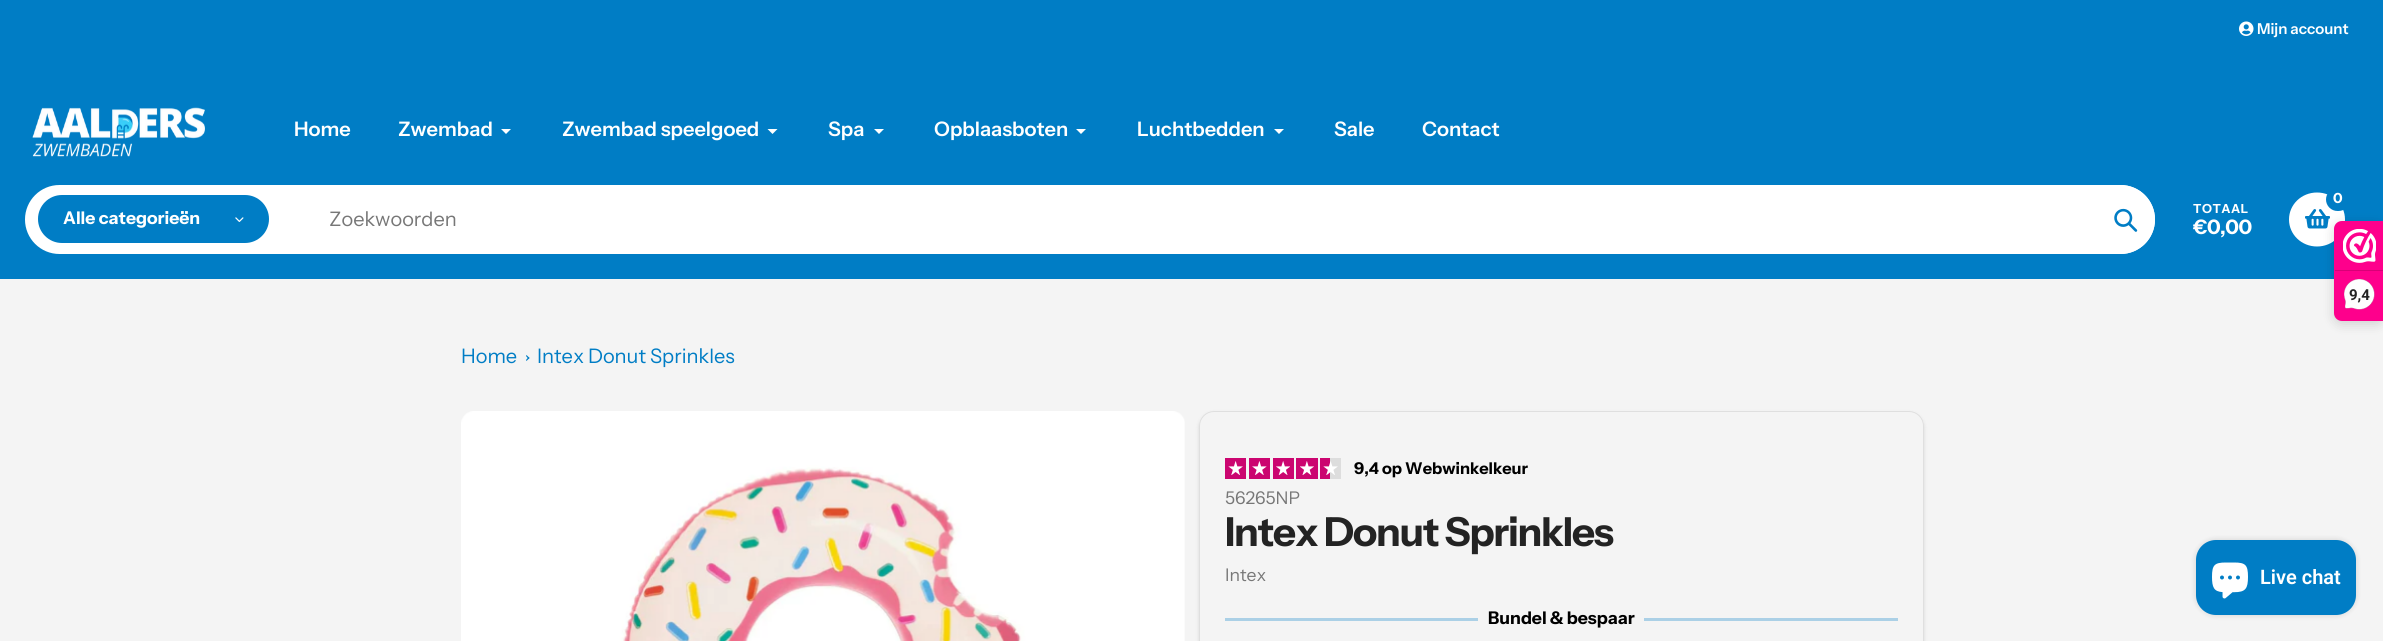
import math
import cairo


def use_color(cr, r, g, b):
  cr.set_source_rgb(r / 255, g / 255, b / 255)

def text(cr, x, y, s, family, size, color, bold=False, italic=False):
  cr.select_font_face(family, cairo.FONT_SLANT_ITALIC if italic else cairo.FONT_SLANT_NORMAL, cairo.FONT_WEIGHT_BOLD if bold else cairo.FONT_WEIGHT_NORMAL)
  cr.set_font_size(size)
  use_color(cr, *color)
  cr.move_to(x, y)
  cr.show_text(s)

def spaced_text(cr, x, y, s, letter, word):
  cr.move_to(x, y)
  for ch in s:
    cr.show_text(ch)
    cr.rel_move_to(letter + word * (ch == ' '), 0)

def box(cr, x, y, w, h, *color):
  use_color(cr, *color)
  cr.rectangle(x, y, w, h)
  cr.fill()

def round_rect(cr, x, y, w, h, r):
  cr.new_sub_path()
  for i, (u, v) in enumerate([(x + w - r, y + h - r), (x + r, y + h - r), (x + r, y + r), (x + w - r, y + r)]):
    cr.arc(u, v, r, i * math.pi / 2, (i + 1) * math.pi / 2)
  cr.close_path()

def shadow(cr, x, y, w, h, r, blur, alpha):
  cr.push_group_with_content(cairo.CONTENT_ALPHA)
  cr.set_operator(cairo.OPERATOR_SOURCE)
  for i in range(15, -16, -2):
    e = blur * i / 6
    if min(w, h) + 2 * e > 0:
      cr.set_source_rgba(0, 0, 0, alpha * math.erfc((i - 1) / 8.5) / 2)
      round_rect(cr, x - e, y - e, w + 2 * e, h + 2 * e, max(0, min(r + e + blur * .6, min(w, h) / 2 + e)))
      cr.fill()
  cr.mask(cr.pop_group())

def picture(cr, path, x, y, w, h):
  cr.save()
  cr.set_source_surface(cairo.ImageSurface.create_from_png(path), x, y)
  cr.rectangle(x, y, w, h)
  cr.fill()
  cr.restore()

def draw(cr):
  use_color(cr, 244, 244, 244)
  cr.paint()
  box(cr, 0, 0, 2383, 279, 0, 125, 197)
  picture(cr, "img_01.png", 2239, 21, 15, 15)
  picture(cr, "img_02.png", 32, 107, 173, 50)
  use_color(cr, 255, 255, 255)
  cr.new_path()
  cr.move_to(511, 129)
  cr.line_to(506, 134)
  cr.line_to(501, 129)
  cr.fill()
  cr.new_path()
  cr.move_to(777.5, 129)
  cr.line_to(772.5, 134)
  cr.line_to(767.5, 129)
  cr.fill()
  cr.new_path()
  cr.move_to(884, 129)
  cr.line_to(879, 134)
  cr.line_to(874, 129)
  cr.fill()
  cr.new_path()
  cr.move_to(1086, 129)
  cr.line_to(1081, 134)
  cr.line_to(1076, 129)
  cr.fill()
  cr.new_path()
  cr.move_to(1284, 129)
  cr.line_to(1279, 134)
  cr.line_to(1274, 129)
  cr.fill()
  round_rect(cr, 25, 185, 2130, 69, 34.5)
  cr.fill()
  use_color(cr, 0, 125, 197)
  round_rect(cr, 38, 195, 231, 48, 24)
  cr.fill()
  picture(cr, "img_03.png", 235, 217, 9, 5)
  use_color(cr, 255, 255, 255)
  round_rect(cr, 294, 185, 1861, 69, 34.5)
  cr.fill()
  picture(cr, "img_04.png", 2114, 208, 24, 24)
  cr.new_path()
  cr.move_to(2317, 192.5)
  cr.curve_to(2332.5, 192.5, 2345, 204.5, 2345, 219.5)
  cr.curve_to(2345, 234.5, 2332.5, 246.5, 2317, 246.5)
  cr.curve_to(2301.5, 246.5, 2289, 234.5, 2289, 219.5)
  cr.curve_to(2289, 204.5, 2301.5, 192.5, 2317, 192.5)
  cr.close_path()
  cr.fill()
  picture(cr, "img_05.png", 2305, 209, 25, 20)
  use_color(cr, 0, 125, 197)
  round_rect(cr, 2326, 188, 24, 23, 11.5)
  cr.fill()
  use_color(cr, 0, 0, 0)
  shadow(cr, 2334, 224, 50, 100, 8, 6, 0.15)
  use_color(cr, 254, 0, 140)
  cr.new_path()
  cr.move_to(2342, 221)
  cr.line_to(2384, 221)
  cr.line_to(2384, 321)
  cr.line_to(2342, 321)
  cr.curve_to(2337.5, 321, 2334, 317.5, 2334, 313)
  cr.line_to(2334, 229)
  cr.curve_to(2334, 224.5, 2337.5, 221, 2342, 221)
  cr.close_path()
  cr.fill()
  picture(cr, "img_06.png", 2343, 229, 33, 34)
  box(cr, 2335, 270, 48, 1, 216, 0, 119)
  picture(cr, "img_07.png", 2344, 279, 31, 31)
  use_color(cr, 0, 125, 197)
  cr.new_path()
  cr.move_to(526.5, 355)
  cr.line_to(529.5, 358)
  cr.line_to(528.5, 359)
  cr.line_to(526, 356)
  cr.close_path()
  cr.fill()
  cr.new_path()
  cr.move_to(528.5, 357)
  cr.line_to(529.5, 358)
  cr.line_to(526.5, 361)
  cr.line_to(526, 360)
  cr.close_path()
  cr.fill()
  picture(cr, "img_08.png", 461, 411, 724, 230)
  cr.save()
  cr.set_fill_rule(cairo.FILL_RULE_EVEN_ODD)
  cr.new_path()
  cr.move_to(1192, 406)
  cr.line_to(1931, 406)
  cr.line_to(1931, 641)
  cr.line_to(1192, 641)
  cr.close_path()
  cr.move_to(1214, 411)
  cr.line_to(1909, 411)
  cr.curve_to(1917.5, 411, 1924, 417.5, 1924, 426)
  cr.line_to(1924, 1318)
  cr.curve_to(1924, 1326.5, 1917.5, 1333, 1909, 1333)
  cr.line_to(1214, 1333)
  cr.curve_to(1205.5, 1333, 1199, 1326.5, 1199, 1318)
  cr.line_to(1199, 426)
  cr.curve_to(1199, 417.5, 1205.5, 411, 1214, 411)
  cr.close_path()
  cr.clip()
  use_color(cr, 0, 0, 0)
  shadow(cr, 1199, 413, 725, 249, 15, 2, 0.12)
  cr.restore()
  round_rect(cr, 1199.5, 411.5, 724, 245, 14.5)
  use_color(cr, 223, 223, 223)
  cr.set_line_width(1)
  cr.stroke()
  picture(cr, "img_09.png", 1225, 458, 21, 21)
  picture(cr, "img_10.png", 1249, 458, 21, 21)
  picture(cr, "img_11.png", 1273, 458, 21, 21)
  picture(cr, "img_12.png", 1296, 458, 22, 21)
  picture(cr, "img_13.png", 1320, 458, 21, 21)
  box(cr, 1225, 618, 253, 3, 171, 208, 230)
  box(cr, 1644, 618, 254, 3, 171, 208, 230)
  use_color(cr, 0, 0, 0)
  shadow(cr, 2196, 540, 160, 75, 20, 3, 0.15)
  use_color(cr, 0, 125, 197)
  round_rect(cr, 2196, 540, 160, 75, 20)
  cr.fill()
  picture(cr, "img_14.png", 2212, 562, 36, 37)
  text(cr, 2257, 34, "Mijn account", "Instrument Sans SemiBold", 15, (255, 255, 255))
  text(cr, 294, 136, "Home", "Instrument Sans SemiBold", 20, (255, 255, 255))
  text(cr, 398, 136, "Zwembad", "Instrument Sans SemiBold", 20, (255, 255, 255))
  text(cr, 562, 136, "Zwembad speelgoed", "Instrument Sans SemiBold", 20, (255, 255, 255))
  text(cr, 828, 136, "Spa", "Instrument Sans SemiBold", 20, (255, 255, 255))
  text(cr, 934, 136, "Opblaasboten", "Instrument Sans SemiBold", 20, (255, 255, 255))
  text(cr, 1137, 136, "Luchtbedden", "Instrument Sans SemiBold", 20, (255, 255, 255))
  text(cr, 1334, 136, "Sale", "Instrument Sans SemiBold", 20, (255, 255, 255))
  text(cr, 1422, 136, "Contact", "Instrument Sans SemiBold", 20, (255, 255, 255))
  text(cr, 63, 224, "Alle categorieën", "Instrument Sans", 17.5, (255, 255, 255), bold=True)
  text(cr, 329, 226, "Zoekwoorden", "Instrument Sans", 20, (119, 119, 119))
  text(cr, 2333, 203, "0", "Instrument Sans", 14, (255, 255, 255), bold=True)
  cr.set_font_size(12.5)
  spaced_text(cr, 2193, 213, "TOTAAL", 0.5, 0)
  cr.set_font_size(20)
  spaced_text(cr, 2193, 234, "€0,00", -0.5, 0)
  text(cr, 2349, 300, "9,4", "Roboto", 15, (35, 35, 35), bold=True)
  text(cr, 461, 363, "Home", "Instrument Sans", 20, (0, 125, 197))
  text(cr, 537, 363, "Intex Donut Sprinkles", "Instrument Sans", 20, (0, 125, 197))
  text(cr, 1354, 474, "9,4 op Webwinkelkeur", "Instrument Sans", 16.25, (0, 0, 0), bold=True)
  text(cr, 1225, 504, "56265NP", "Instrument Sans", 17.5, (119, 119, 119))
  cr.select_font_face("Instrument Sans", cairo.FONT_SLANT_NORMAL, cairo.FONT_WEIGHT_BOLD)
  cr.set_font_size(40)
  use_color(cr, 35, 35, 35)
  spaced_text(cr, 1225, 546, "Intex Donut Sprinkles", -1.25, 0)
  text(cr, 1225, 581, "Intex", "Instrument Sans", 17.5, (119, 119, 119))
  text(cr, 1488, 624, "Bundel & bespaar", "Instrument Sans", 17.5, (0, 0, 0), bold=True)
  text(cr, 2260, 584, "Live chat", "Roboto SemiBold", 20, (255, 255, 255))


surface = cairo.ImageSurface(cairo.FORMAT_RGB24, 2383, 641)
cr = cairo.Context(surface)
options = cairo.FontOptions()
options.set_hint_metrics(cairo.HINT_METRICS_OFF)
options.set_hint_style(cairo.HINT_STYLE_NONE)
cr.set_font_options(options)
cr.set_miter_limit(4)
draw(cr)
surface.write_to_png("out.png")
